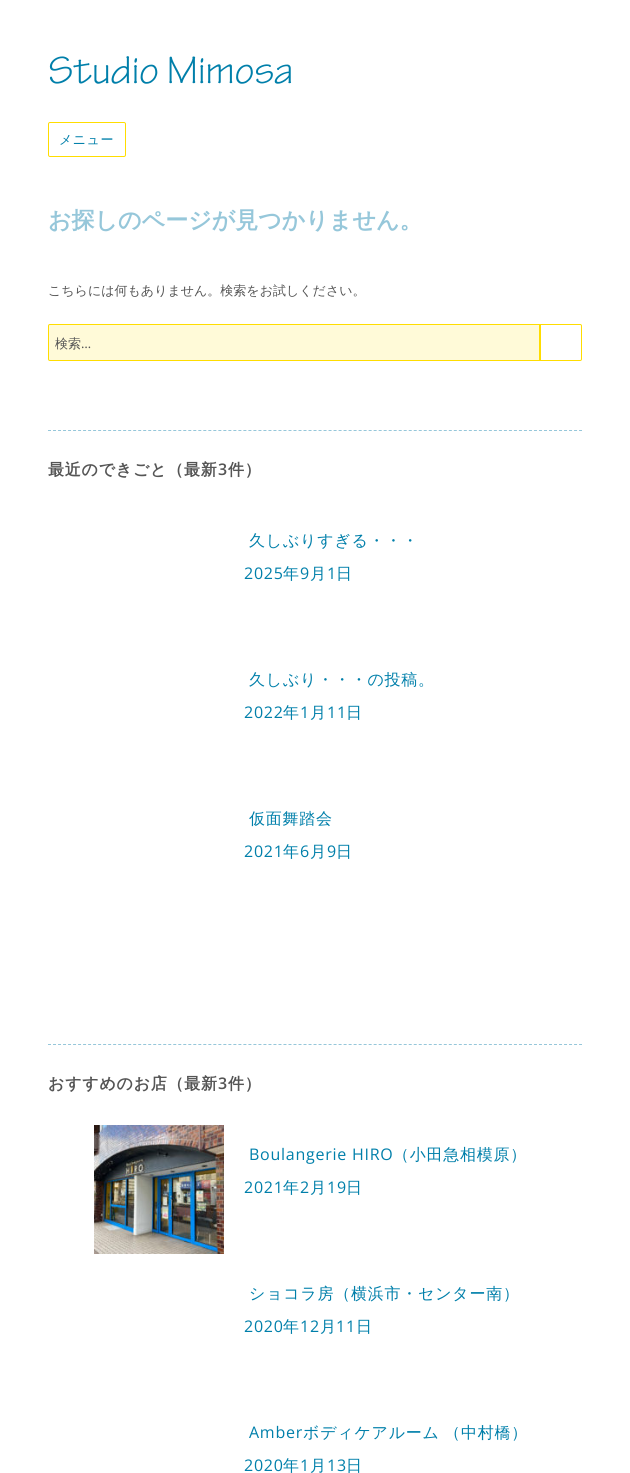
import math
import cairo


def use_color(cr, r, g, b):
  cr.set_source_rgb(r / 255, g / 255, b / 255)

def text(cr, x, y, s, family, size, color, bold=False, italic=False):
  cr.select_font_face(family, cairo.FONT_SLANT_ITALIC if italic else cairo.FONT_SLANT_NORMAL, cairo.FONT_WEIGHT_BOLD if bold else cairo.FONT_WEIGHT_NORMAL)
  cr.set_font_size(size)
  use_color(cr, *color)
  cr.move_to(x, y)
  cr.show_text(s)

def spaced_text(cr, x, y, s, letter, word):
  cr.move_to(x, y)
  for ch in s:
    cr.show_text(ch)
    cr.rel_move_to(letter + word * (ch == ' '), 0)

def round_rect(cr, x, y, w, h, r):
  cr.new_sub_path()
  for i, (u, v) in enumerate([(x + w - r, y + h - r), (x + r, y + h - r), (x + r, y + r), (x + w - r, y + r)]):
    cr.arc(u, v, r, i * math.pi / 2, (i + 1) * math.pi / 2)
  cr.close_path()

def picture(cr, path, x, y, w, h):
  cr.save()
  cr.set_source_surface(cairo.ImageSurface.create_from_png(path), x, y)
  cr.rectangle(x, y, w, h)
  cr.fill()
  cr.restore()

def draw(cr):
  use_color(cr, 255, 255, 255)
  cr.paint()
  round_rect(cr, 48.5, 122.5, 77, 34, 1.5)
  use_color(cr, 255, 221, 0)
  cr.set_line_width(1)
  cr.stroke()
  use_color(cr, 255, 250, 216)
  cr.new_path()
  cr.move_to(50, 324.5)
  cr.line_to(539.5, 324.5)
  cr.line_to(539.5, 360.5)
  cr.line_to(50, 360.5)
  cr.curve_to(49, 360.5, 48.5, 360, 48.5, 359)
  cr.line_to(48.5, 326)
  cr.curve_to(48.5, 325, 49, 324.5, 50, 324.5)
  cr.close_path()
  cr.fill_preserve()
  use_color(cr, 255, 221, 0)
  cr.stroke()
  cr.new_path()
  cr.move_to(540.5, 324.5)
  cr.line_to(580, 324.5)
  cr.curve_to(581, 324.5, 581.5, 325, 581.5, 326)
  cr.line_to(581.5, 359)
  cr.curve_to(581.5, 360, 581, 360.5, 580, 360.5)
  cr.line_to(540.5, 360.5)
  cr.close_path()
  cr.stroke()
  cr.new_path()
  cr.move_to(48, 430.5)
  cr.line_to(582, 430.5)
  use_color(cr, 150, 199, 218)
  cr.set_dash([3, 2.01])
  cr.stroke()
  cr.new_path()
  cr.move_to(48, 1044.5)
  cr.line_to(582, 1044.5)
  cr.stroke()
  picture(cr, "img_01.png", 94, 1125, 130, 129)
  text(cr, 48, 83, "Studio Mimosa", "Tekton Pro", 41, (0, 127, 170))
  cr.select_font_face("WenQuanYi Zen Hei Medium")
  cr.set_font_size(13)
  spaced_text(cr, 59, 144, "メニュー", 0.5, 0)
  text(cr, 48, 228, "お探しのページが見つかりません。", "WenQuanYi Zen Hei", 23, (150, 199, 218), bold=True)
  text(cr, 48, 295, "こちらには何もありません。検索をお試しください。", "WenQuanYi Zen Hei Medium", 13, (85, 85, 85))
  text(cr, 55, 348, "検索", "WenQuanYi Zen Hei Medium", 13, (85, 85, 85))
  text(cr, 81, 348, "…", "Open Sans", 13, (85, 85, 85))
  cr.select_font_face("WenQuanYi Zen Hei", cairo.FONT_SLANT_NORMAL, cairo.FONT_WEIGHT_BOLD)
  cr.set_font_size(16)
  spaced_text(cr, 48, 475, "最近のできごと（最新", 0.75, 0)
  cr.select_font_face("Open Sans SemiBold")
  spaced_text(cr, 218, 475, "3", 0.75, 0)
  cr.select_font_face("WenQuanYi Zen Hei", cairo.FONT_SLANT_NORMAL, cairo.FONT_WEIGHT_BOLD)
  spaced_text(cr, 228, 475, "件）", 0.75, 0)
  cr.select_font_face("WenQuanYi Zen Hei Medium")
  use_color(cr, 0, 127, 170)
  spaced_text(cr, 249, 546, "久しぶりすぎる・・・", 0.75, 0)
  cr.select_font_face("Open Sans")
  spaced_text(cr, 244, 579, "2025", 0.75, 0)
  cr.select_font_face("WenQuanYi Zen Hei Medium")
  spaced_text(cr, 283, 579, "年", 0.75, 0)
  cr.select_font_face("Open Sans")
  spaced_text(cr, 300, 579, "9", 0.75, 0)
  cr.select_font_face("WenQuanYi Zen Hei Medium")
  spaced_text(cr, 310, 579, "月", 0.75, 0)
  cr.select_font_face("Open Sans")
  spaced_text(cr, 327, 579, "1", 0.75, 0)
  cr.select_font_face("WenQuanYi Zen Hei Medium")
  spaced_text(cr, 336, 579, "日", 0.75, 0)
  spaced_text(cr, 249, 685, "久しぶり・・・の投稿。", 0.75, 0)
  cr.select_font_face("Open Sans")
  spaced_text(cr, 244, 718, "2022", 0.75, 0)
  cr.select_font_face("WenQuanYi Zen Hei Medium")
  spaced_text(cr, 283, 718, "年", 0.75, 0)
  cr.select_font_face("Open Sans")
  spaced_text(cr, 300, 718, "1", 0.75, 0)
  cr.select_font_face("WenQuanYi Zen Hei Medium")
  spaced_text(cr, 310, 718, "月", 0.75, 0)
  cr.select_font_face("Open Sans")
  spaced_text(cr, 327, 718, "11", 0.75, 0)
  cr.select_font_face("WenQuanYi Zen Hei Medium")
  spaced_text(cr, 346, 718, "日", 0.75, 0)
  spaced_text(cr, 249, 824, "仮面舞踏会", 0.75, 0)
  cr.select_font_face("Open Sans")
  spaced_text(cr, 244, 857, "2021", 0.75, 0)
  cr.select_font_face("WenQuanYi Zen Hei Medium")
  spaced_text(cr, 283, 857, "年", 0.75, 0)
  cr.select_font_face("Open Sans")
  spaced_text(cr, 300, 857, "6", 0.75, 0)
  cr.select_font_face("WenQuanYi Zen Hei Medium")
  spaced_text(cr, 310, 857, "月", 0.75, 0)
  cr.select_font_face("Open Sans")
  spaced_text(cr, 327, 857, "9", 0.75, 0)
  cr.select_font_face("WenQuanYi Zen Hei Medium")
  spaced_text(cr, 336, 857, "日", 0.75, 0)
  cr.select_font_face("WenQuanYi Zen Hei", cairo.FONT_SLANT_NORMAL, cairo.FONT_WEIGHT_BOLD)
  use_color(cr, 85, 85, 85)
  spaced_text(cr, 48, 1089, "おすすめのお店（最新", 0.75, 0)
  cr.select_font_face("Open Sans SemiBold")
  spaced_text(cr, 218, 1089, "3", 0.75, 0)
  cr.select_font_face("WenQuanYi Zen Hei", cairo.FONT_SLANT_NORMAL, cairo.FONT_WEIGHT_BOLD)
  spaced_text(cr, 228, 1089, "件）", 0.75, 0)
  cr.select_font_face("Open Sans")
  use_color(cr, 0, 127, 170)
  spaced_text(cr, 249, 1160, "Boulangerie HIRO", 0.75, 0)
  cr.select_font_face("WenQuanYi Zen Hei Medium")
  spaced_text(cr, 393, 1160, "（小田急相模原）", 0.75, 0)
  cr.select_font_face("Open Sans")
  spaced_text(cr, 244, 1193, "2021", 0.75, 0)
  cr.select_font_face("WenQuanYi Zen Hei Medium")
  spaced_text(cr, 283, 1193, "年", 0.75, 0)
  cr.select_font_face("Open Sans")
  spaced_text(cr, 300, 1193, "2", 0.75, 0)
  cr.select_font_face("WenQuanYi Zen Hei Medium")
  spaced_text(cr, 310, 1193, "月", 0.75, 0)
  cr.select_font_face("Open Sans")
  spaced_text(cr, 327, 1193, "19", 0.75, 0)
  cr.select_font_face("WenQuanYi Zen Hei Medium")
  spaced_text(cr, 346, 1193, "日", 0.75, 0)
  spaced_text(cr, 249, 1299, "ショコラ房（横浜市・センター南）", 0.75, 0)
  cr.select_font_face("Open Sans")
  spaced_text(cr, 244, 1332, "2020", 0.75, 0)
  cr.select_font_face("WenQuanYi Zen Hei Medium")
  spaced_text(cr, 283, 1332, "年", 0.75, 0)
  cr.select_font_face("Open Sans")
  spaced_text(cr, 300, 1332, "12", 0.75, 0)
  cr.select_font_face("WenQuanYi Zen Hei Medium")
  spaced_text(cr, 320, 1332, "月", 0.75, 0)
  cr.select_font_face("Open Sans")
  spaced_text(cr, 336, 1332, "11", 0.75, 0)
  cr.select_font_face("WenQuanYi Zen Hei Medium")
  spaced_text(cr, 356, 1332, "日", 0.75, 0)
  cr.select_font_face("Open Sans")
  spaced_text(cr, 249, 1438, "Amber", 0.75, 0)
  cr.select_font_face("WenQuanYi Zen Hei Medium")
  spaced_text(cr, 303, 1438, "ボディケアルーム （中村橋）", 0.75, -1)
  cr.select_font_face("Open Sans")
  spaced_text(cr, 244, 1471, "2020", 0.75, 0)
  cr.select_font_face("WenQuanYi Zen Hei Medium")
  spaced_text(cr, 283, 1471, "年", 0.75, 0)
  cr.select_font_face("Open Sans")
  spaced_text(cr, 300, 1471, "1", 0.75, 0)
  cr.select_font_face("WenQuanYi Zen Hei Medium")
  spaced_text(cr, 310, 1471, "月", 0.75, 0)
  cr.select_font_face("Open Sans")
  spaced_text(cr, 327, 1471, "13", 0.75, 0)
  cr.select_font_face("WenQuanYi Zen Hei Medium")
  spaced_text(cr, 346, 1471, "日", 0.75, 0)


surface = cairo.ImageSurface(cairo.FORMAT_RGB24, 630, 1473)
cr = cairo.Context(surface)
options = cairo.FontOptions()
options.set_hint_metrics(cairo.HINT_METRICS_OFF)
options.set_hint_style(cairo.HINT_STYLE_NONE)
cr.set_font_options(options)
cr.set_miter_limit(4)
draw(cr)
surface.write_to_png("out.png")
